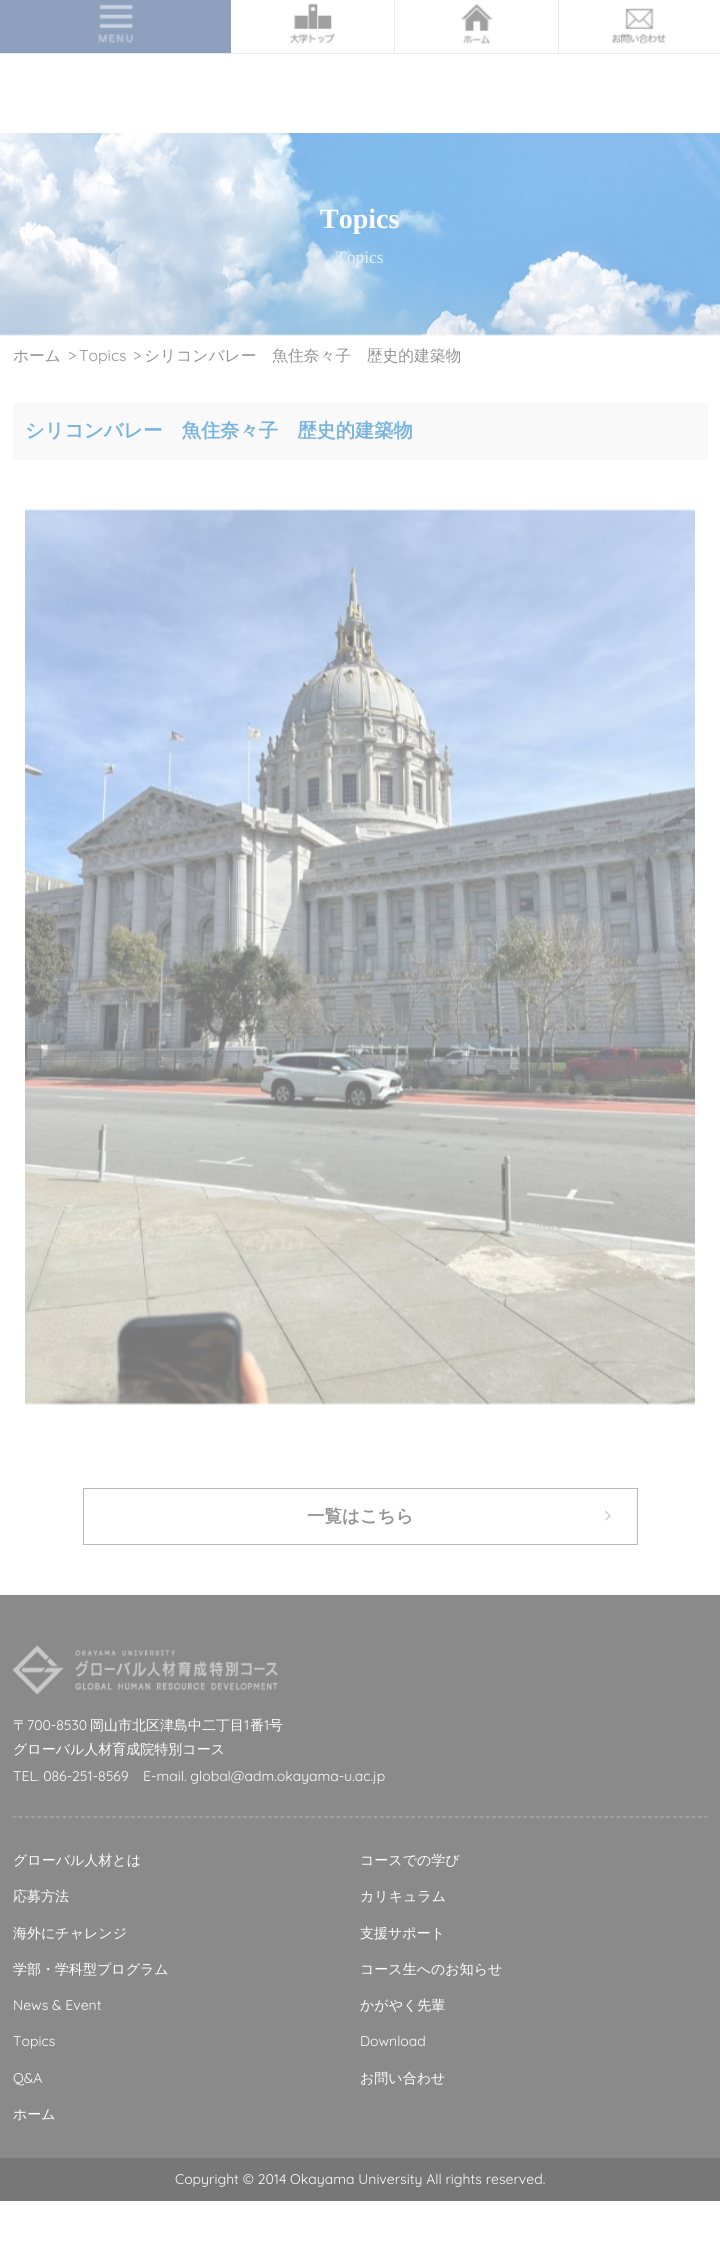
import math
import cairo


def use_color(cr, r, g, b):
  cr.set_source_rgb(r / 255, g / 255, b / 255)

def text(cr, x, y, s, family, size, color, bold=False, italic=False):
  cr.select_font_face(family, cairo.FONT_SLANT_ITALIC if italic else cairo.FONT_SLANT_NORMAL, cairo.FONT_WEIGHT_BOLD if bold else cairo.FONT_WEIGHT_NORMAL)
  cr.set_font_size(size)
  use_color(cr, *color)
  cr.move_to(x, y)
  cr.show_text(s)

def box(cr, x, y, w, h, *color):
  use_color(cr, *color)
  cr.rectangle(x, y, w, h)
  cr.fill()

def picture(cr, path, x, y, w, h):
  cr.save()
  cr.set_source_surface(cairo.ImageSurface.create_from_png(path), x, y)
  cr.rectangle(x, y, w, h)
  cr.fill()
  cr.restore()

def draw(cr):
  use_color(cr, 255, 255, 255)
  cr.paint()
  box(cr, 0, 53, 720, 1, 235, 235, 235)
  box(cr, 0, 0, 231, 53, 141, 160, 190)
  picture(cr, "img_01.png", 98, 4, 35, 39)
  box(cr, 394, 0, 1, 53, 235, 235, 235)
  picture(cr, "img_02.png", 290, 3, 46, 41)
  box(cr, 558, 0, 1, 53, 235, 235, 235)
  picture(cr, "img_03.png", 461, 3, 32, 41)
  picture(cr, "img_04.png", 612, 8, 54, 36)
  picture(cr, "img_05.png", 0, 133, 720, 203)
  box(cr, 13, 403, 695, 57, 249, 249, 249)
  picture(cr, "img_06.png", 25, 509, 670, 896)
  cr.rectangle(83.5, 1488.5, 554, 56)
  use_color(cr, 185, 184, 184)
  cr.set_line_width(1)
  cr.stroke()
  picture(cr, "img_07.png", 605, 1511, 6, 10)
  box(cr, 0, 1595, 720, 563, 138, 138, 138)
  cr.new_path()
  cr.move_to(12.5, 1817)
  cr.line_to(707.5, 1817)
  use_color(cr, 174, 174, 174)
  cr.set_line_width(1.2)
  cr.set_dash([3.75, 2.48])
  cr.stroke()
  picture(cr, "img_08.png", 12, 1645, 266, 50)
  box(cr, 0, 2158, 720, 43, 119, 119, 119)
  text(cr, 320, 228, "Topics", "Liberation Serif", 28, (255, 255, 255), bold=True)
  text(cr, 336, 263, "Topics", "Liberation Serif", 17.5, (228, 240, 250))
  text(cr, 13, 361, "ホーム", "WenQuanYi Zen Hei Medium", 15.75, (147, 147, 147))
  text(cr, 68, 361, ">", "Quicksand", 15.75, (147, 147, 147))
  text(cr, 79, 361, "Topics", "Quicksand", 15.75, (147, 147, 147))
  text(cr, 133, 361, ">", "Quicksand", 15.75, (147, 147, 147))
  text(cr, 144, 361, "シリコンバレー　魚住奈々子　歴史的建築物", "WenQuanYi Zen Hei Medium", 15.75, (147, 147, 147))
  text(cr, 25, 437, "シリコンバレー　魚住奈々子　歴史的建築物", "WenQuanYi Zen Hei", 19.25, (119, 180, 223), bold=True)
  text(cr, 307, 1522, "一覧はこちら", "WenQuanYi Zen Hei", 17.5, (147, 147, 147), bold=True)
  text(cr, 13, 1730, "〒", "WenQuanYi Zen Hei Medium", 14, (255, 255, 255))
  text(cr, 27, 1730, "700-8530", "Quicksand", 14, (255, 255, 255))
  text(cr, 90, 1730, "岡山市北区津島中二丁目", "WenQuanYi Zen Hei Medium", 14, (255, 255, 255))
  text(cr, 244, 1730, "1", "Quicksand", 14, (255, 255, 255))
  text(cr, 250, 1730, "番", "WenQuanYi Zen Hei Medium", 14, (255, 255, 255))
  text(cr, 264, 1730, "1", "Quicksand", 14, (255, 255, 255))
  text(cr, 269, 1730, "号", "WenQuanYi Zen Hei Medium", 14, (255, 255, 255))
  text(cr, 13, 1754, "グローバル人材育成院特別コース", "WenQuanYi Zen Hei Medium", 14, (255, 255, 255))
  text(cr, 13, 1781, "TEL. 086-251-8569", "Quicksand", 14, (255, 255, 255))
  text(cr, 143, 1781, "E-mail. global@adm.okayama-u.ac.jp", "Quicksand", 14, (255, 255, 255))
  text(cr, 13, 1865, "グローバル人材とは", "WenQuanYi Zen Hei Medium", 14, (255, 255, 255))
  text(cr, 360, 1865, "コースでの学び", "WenQuanYi Zen Hei Medium", 14, (255, 255, 255))
  text(cr, 13, 1901, "応募方法", "WenQuanYi Zen Hei Medium", 14, (255, 255, 255))
  text(cr, 360, 1901, "カリキュラム", "WenQuanYi Zen Hei Medium", 14, (255, 255, 255))
  text(cr, 13, 1938, "海外にチャレンジ", "WenQuanYi Zen Hei Medium", 14, (255, 255, 255))
  text(cr, 360, 1938, "支援サポート", "WenQuanYi Zen Hei Medium", 14, (255, 255, 255))
  text(cr, 13, 1974, "学部・学科型プログラム", "WenQuanYi Zen Hei Medium", 14, (255, 255, 255))
  text(cr, 360, 1974, "コース生へのお知らせ", "WenQuanYi Zen Hei Medium", 14, (255, 255, 255))
  text(cr, 13, 2010, "News & Event", "Quicksand", 14, (255, 255, 255))
  text(cr, 360, 2010, "かがやく先輩", "WenQuanYi Zen Hei Medium", 14, (255, 255, 255))
  text(cr, 13, 2046, "Topics", "Quicksand", 14, (255, 255, 255))
  text(cr, 360, 2046, "Download", "Quicksand", 14, (255, 255, 255))
  text(cr, 13, 2083, "Q&A", "Quicksand", 14, (255, 255, 255))
  text(cr, 360, 2083, "お問い合わせ", "WenQuanYi Zen Hei Medium", 14, (255, 255, 255))
  text(cr, 13, 2119, "ホーム", "WenQuanYi Zen Hei Medium", 14, (255, 255, 255))
  text(cr, 175, 2184, "Copyright © 2014 Okayama University All rights reserved.", "Quicksand", 14, (255, 255, 255))


surface = cairo.ImageSurface(cairo.FORMAT_RGB24, 720, 2259)
cr = cairo.Context(surface)
options = cairo.FontOptions()
options.set_hint_metrics(cairo.HINT_METRICS_OFF)
options.set_hint_style(cairo.HINT_STYLE_NONE)
cr.set_font_options(options)
cr.set_miter_limit(4)
draw(cr)
surface.write_to_png("out.png")
